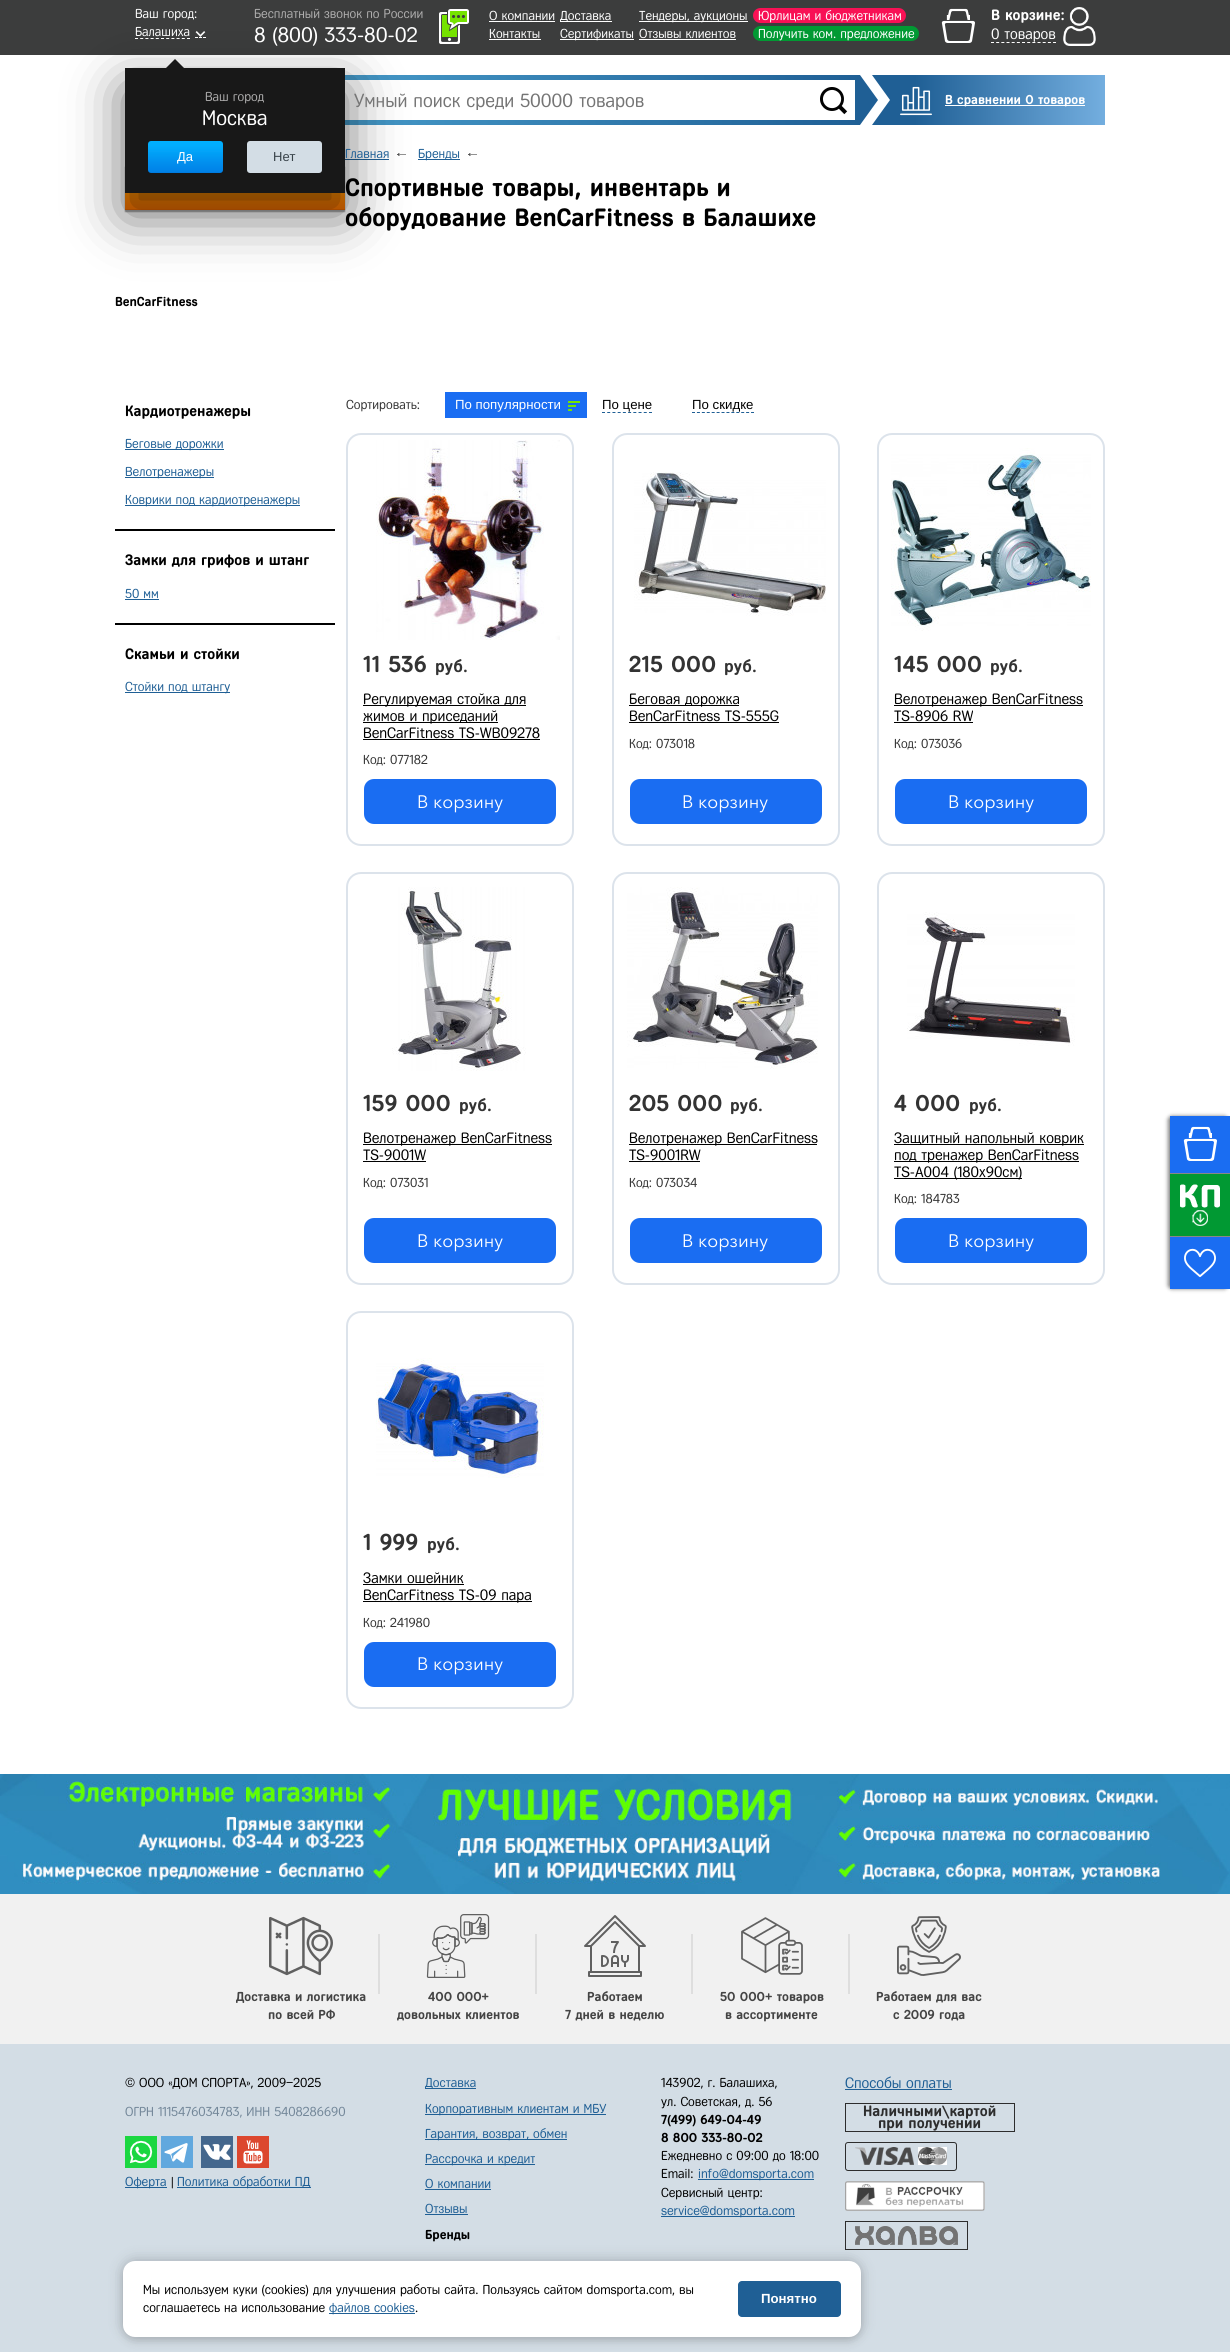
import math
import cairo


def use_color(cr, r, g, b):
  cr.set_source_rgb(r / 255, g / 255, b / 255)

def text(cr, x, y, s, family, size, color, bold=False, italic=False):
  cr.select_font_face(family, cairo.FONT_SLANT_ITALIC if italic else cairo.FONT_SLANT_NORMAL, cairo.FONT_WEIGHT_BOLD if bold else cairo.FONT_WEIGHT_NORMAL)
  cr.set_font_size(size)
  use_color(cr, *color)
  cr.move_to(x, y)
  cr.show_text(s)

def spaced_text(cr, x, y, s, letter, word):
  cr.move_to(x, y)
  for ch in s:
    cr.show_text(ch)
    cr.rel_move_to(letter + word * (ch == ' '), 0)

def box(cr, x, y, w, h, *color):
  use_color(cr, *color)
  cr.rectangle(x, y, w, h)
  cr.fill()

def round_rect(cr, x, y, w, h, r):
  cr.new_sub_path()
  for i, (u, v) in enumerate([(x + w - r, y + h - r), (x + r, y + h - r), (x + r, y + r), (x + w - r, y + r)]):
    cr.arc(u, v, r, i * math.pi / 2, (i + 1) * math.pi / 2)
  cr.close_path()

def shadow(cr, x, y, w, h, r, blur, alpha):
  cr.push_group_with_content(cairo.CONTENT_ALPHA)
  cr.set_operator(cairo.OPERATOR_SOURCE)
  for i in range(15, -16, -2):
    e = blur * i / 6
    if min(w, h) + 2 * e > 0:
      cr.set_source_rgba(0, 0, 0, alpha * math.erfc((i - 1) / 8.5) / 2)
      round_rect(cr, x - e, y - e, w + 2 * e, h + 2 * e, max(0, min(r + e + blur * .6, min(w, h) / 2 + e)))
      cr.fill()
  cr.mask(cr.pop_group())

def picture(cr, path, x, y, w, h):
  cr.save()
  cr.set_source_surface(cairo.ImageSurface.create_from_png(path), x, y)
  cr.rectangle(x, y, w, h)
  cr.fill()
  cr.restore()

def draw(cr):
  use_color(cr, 255, 255, 255)
  cr.paint()
  box(cr, 0, 0, 1230, 55, 60, 61, 61)
  cr.new_path()
  cr.move_to(135, 38.5)
  cr.line_to(190, 38.5)
  use_color(cr, 255, 255, 255)
  cr.set_line_width(1)
  cr.set_dash([3, 2.2])
  cr.stroke()
  cr.new_path()
  cr.move_to(195, 37.5)
  cr.line_to(198, 37.5)
  cr.move_to(199, 37.5)
  cr.line_to(202, 37.5)
  cr.move_to(203, 37.5)
  cr.line_to(206, 37.5)
  cr.set_dash([])
  cr.stroke()
  picture(cr, "img_01.png", 195, 31, 11, 6)
  gradient = cairo.LinearGradient(125, 100, 860, 100)
  gradient.add_color_stop_rgba(0, 0.333, 0.694, 0.867, 1)
  gradient.add_color_stop_rgba(1, 0.122, 0.373, 0.584, 1)
  cr.set_source(gradient)
  cr.rectangle(345, 75, 515, 50)
  cr.fill()
  box(cr, 345, 80, 510, 40, 255, 255, 255)
  use_color(cr, 0, 0, 0)
  shadow(cr, 125, 167, 220, 45, 0, 0.5, 0.35)
  gradient = cairo.LinearGradient(235, 165, 235, 210)
  gradient.add_color_stop_rgba(0, 1, 0.737, 0, 1)
  gradient.add_color_stop_rgba(0.18, 1, 0.702, 0, 1)
  gradient.add_color_stop_rgba(0.73, 1, 0.522, 0, 1)
  gradient.add_color_stop_rgba(0.98, 1, 0.463, 0, 1)
  gradient.add_color_stop_rgba(1, 0.8, 0.341, 0, 1)
  cr.set_source(gradient)
  cr.rectangle(125, 193, 220, 17)
  cr.fill()
  box(cr, 345, 159, 44, 1, 31, 95, 149)
  picture(cr, "img_07.png", 397, 153, 9, 3)
  box(cr, 418, 159, 42, 1, 31, 95, 149)
  use_color(cr, 0, 0, 0)
  shadow(cr, 125, 89, 220, 125, 0, 27, 0.6)
  box(cr, 125, 68, 220, 125, 24, 24, 24)
  cr.new_path()
  cr.move_to(175, 59)
  cr.line_to(189, 73)
  cr.line_to(175, 87)
  cr.line_to(161, 73)
  cr.close_path()
  cr.fill()
  gradient = cairo.LinearGradient(186, 141, 186, 173)
  gradient.add_color_stop_rgba(0, 0, 0.69, 1, 1)
  gradient.add_color_stop_rgba(0.16, 0.004, 0.675, 0.992, 1)
  gradient.add_color_stop_rgba(0.18, 0.012, 0.667, 0.984, 1)
  gradient.add_color_stop_rgba(0.29, 0, 0.647, 0.98, 1)
  gradient.add_color_stop_rgba(0.33, 0.016, 0.639, 0.973, 1)
  gradient.add_color_stop_rgba(0.36, 0, 0.631, 0.969, 1)
  gradient.add_color_stop_rgba(0.67, 0.008, 0.561, 0.933, 1)
  gradient.add_color_stop_rgba(0.98, 0, 0.506, 0.906, 1)
  gradient.add_color_stop_rgba(1, 0, 0.408, 0.769, 1)
  cr.set_source(gradient)
  round_rect(cr, 148, 141, 75, 32, 3)
  cr.fill()
  use_color(cr, 211, 221, 229)
  round_rect(cr, 247, 141, 75, 32, 3)
  cr.fill()
  picture(cr, "img_02.png", 439, 9, 30, 35)
  box(cr, 489, 21, 66, 1, 255, 255, 255)
  box(cr, 489, 39, 52, 1, 255, 255, 255)
  box(cr, 560, 21, 52, 1, 255, 255, 255)
  box(cr, 560, 39, 74, 1, 255, 255, 255)
  box(cr, 639, 21, 109, 1, 255, 255, 255)
  box(cr, 639, 39, 97, 1, 255, 255, 255)
  use_color(cr, 248, 17, 85)
  round_rect(cr, 753, 8, 153, 15, 7.5)
  cr.fill()
  use_color(cr, 1, 153, 51)
  round_rect(cr, 753, 26, 166, 15, 7.5)
  cr.fill()
  picture(cr, "img_03.png", 941, 8, 34, 35)
  cr.new_path()
  cr.move_to(991, 42.5)
  cr.line_to(1056, 42.5)
  use_color(cr, 255, 255, 255)
  cr.set_dash([3, 2.17])
  cr.stroke()
  picture(cr, "img_05.png", 820, 87, 28, 28)
  use_color(cr, 31, 95, 149)
  cr.new_path()
  cr.move_to(860, 125)
  cr.line_to(860, 75)
  cr.line_to(878, 100)
  cr.close_path()
  cr.fill()
  gradient = cairo.LinearGradient(915, 100, 1105, 100)
  gradient.add_color_stop_rgba(0, 0.122, 0.373, 0.584, 1)
  gradient.add_color_stop_rgba(1, 0.451, 0.682, 0.875, 1)
  cr.set_source(gradient)
  cr.rectangle(915, 75, 190, 50)
  cr.fill()
  use_color(cr, 31, 95, 149)
  cr.new_path()
  cr.move_to(872, 75)
  cr.line_to(915, 75)
  cr.line_to(890, 100)
  cr.close_path()
  cr.fill()
  box(cr, 890, 75, 25, 50, 31, 95, 149)
  cr.new_path()
  cr.move_to(915, 125)
  cr.line_to(872, 125)
  cr.line_to(890, 100)
  cr.close_path()
  cr.fill()
  picture(cr, "img_06.png", 900, 86, 32, 30)
  box(cr, 945, 105, 140, 1, 255, 255, 255)
  picture(cr, "img_07.png", 468, 153, 9, 3)
  box(cr, 115, 529, 220, 2, 0, 0, 0)
  box(cr, 125, 449, 99, 1, 31, 95, 149)
  box(cr, 125, 477, 89, 1, 31, 95, 149)
  box(cr, 125, 505, 175, 1, 31, 95, 149)
  box(cr, 115, 623, 220, 2, 0, 0, 0)
  box(cr, 125, 599, 34, 1, 31, 95, 149)
  box(cr, 125, 692, 105, 1, 31, 95, 149)
  box(cr, 445, 392, 142, 26, 26, 109, 242)
  picture(cr, "img_08.png", 568, 401, 12, 10)
  cr.new_path()
  cr.move_to(602, 412.5)
  cr.line_to(652, 412.5)
  use_color(cr, 31, 95, 149)
  cr.set_dash([3, 2.22])
  cr.stroke()
  cr.new_path()
  cr.move_to(692, 412.5)
  cr.line_to(754, 412.5)
  cr.set_dash([3, 1.92])
  cr.stroke()
  round_rect(cr, 347, 434, 226, 411, 14)
  use_color(cr, 220, 227, 235)
  cr.set_line_width(2)
  cr.set_dash([])
  cr.stroke()
  picture(cr, "img_09.png", 376, 440, 184, 200)
  box(cr, 363, 705, 163, 1, 0, 0, 0)
  box(cr, 363, 722, 135, 1, 0, 0, 0)
  box(cr, 363, 739, 177, 1, 0, 0, 0)
  use_color(cr, 26, 109, 242)
  round_rect(cr, 364, 779, 192, 45, 10)
  cr.fill()
  round_rect(cr, 613, 434, 226, 411, 14)
  use_color(cr, 220, 227, 235)
  cr.stroke()
  picture(cr, "img_10.png", 634, 472, 192, 144)
  box(cr, 629, 705, 110, 1, 0, 0, 0)
  box(cr, 629, 722, 150, 1, 0, 0, 0)
  use_color(cr, 26, 109, 242)
  round_rect(cr, 630, 779, 192, 45, 10)
  cr.fill()
  round_rect(cr, 878, 434, 226, 411, 14)
  use_color(cr, 220, 227, 235)
  cr.stroke()
  picture(cr, "img_11.png", 891, 448, 200, 183)
  box(cr, 894, 705, 189, 1, 0, 0, 0)
  box(cr, 894, 722, 79, 1, 0, 0, 0)
  use_color(cr, 26, 109, 242)
  round_rect(cr, 895, 779, 192, 45, 10)
  cr.fill()
  round_rect(cr, 347, 873, 226, 411, 14)
  use_color(cr, 220, 227, 235)
  cr.stroke()
  picture(cr, "img_12.png", 392, 887, 134, 184)
  box(cr, 363, 1144, 189, 1, 0, 0, 0)
  box(cr, 363, 1161, 63, 1, 0, 0, 0)
  use_color(cr, 26, 109, 242)
  round_rect(cr, 364, 1218, 192, 45, 10)
  cr.fill()
  round_rect(cr, 613, 873, 226, 411, 14)
  use_color(cr, 220, 227, 235)
  cr.stroke()
  picture(cr, "img_13.png", 627, 887, 191, 182)
  box(cr, 629, 1144, 188, 1, 0, 0, 0)
  box(cr, 629, 1161, 71, 1, 0, 0, 0)
  use_color(cr, 26, 109, 242)
  round_rect(cr, 630, 1218, 192, 45, 10)
  cr.fill()
  round_rect(cr, 878, 873, 226, 411, 14)
  use_color(cr, 220, 227, 235)
  cr.stroke()
  picture(cr, "img_14.png", 907, 912, 168, 134)
  box(cr, 894, 1144, 190, 1, 0, 0, 0)
  box(cr, 894, 1161, 185, 1, 0, 0, 0)
  box(cr, 894, 1178, 128, 1, 0, 0, 0)
  use_color(cr, 26, 109, 242)
  round_rect(cr, 895, 1218, 192, 45, 10)
  cr.fill()
  round_rect(cr, 347, 1312, 226, 396, 14)
  use_color(cr, 220, 227, 235)
  cr.stroke()
  picture(cr, "img_15.png", 376, 1358, 168, 120)
  box(cr, 363, 1584, 101, 1, 0, 0, 0)
  box(cr, 363, 1601, 169, 1, 0, 0, 0)
  use_color(cr, 26, 109, 242)
  round_rect(cr, 364, 1642, 192, 45, 10)
  cr.fill()
  use_color(cr, 0, 0, 0)
  shadow(cr, 1168, 1116, 60, 173, 4, 2, 0.5)
  box(cr, 1170, 1116, 60, 57, 26, 109, 242)
  box(cr, 1170, 1173, 60, 1, 136, 136, 136)
  picture(cr, "img_16.png", 1183, 1126, 34, 35)
  box(cr, 1170, 1174, 60, 62, 1, 153, 51)
  box(cr, 1170, 1236, 60, 1, 136, 136, 136)
  picture(cr, "img_17.png", 1180, 1184, 40, 42)
  box(cr, 1170, 1237, 60, 52, 26, 109, 242)
  picture(cr, "img_18.png", 1184, 1248, 32, 30)
  picture(cr, "img_19.png", 0, 1774, 1230, 120)
  box(cr, 0, 1894, 1230, 150, 241, 241, 241)
  picture(cr, "img_20.png", 269, 1916, 64, 60)
  box(cr, 378, 1934, 2, 60, 222, 222, 222)
  picture(cr, "img_21.png", 426, 1914, 64, 64)
  box(cr, 535, 1934, 2, 60, 222, 222, 222)
  picture(cr, "img_22.png", 584, 1915, 62, 62)
  box(cr, 691, 1934, 2, 60, 222, 222, 222)
  picture(cr, "img_23.png", 741, 1917, 62, 58)
  box(cr, 848, 1934, 2, 60, 222, 222, 222)
  picture(cr, "img_24.png", 897, 1916, 64, 60)
  box(cr, 0, 2044, 1230, 308, 211, 221, 229)
  picture(cr, "img_25.png", 125, 2136, 32, 32)
  picture(cr, "img_26.png", 161, 2136, 32, 32)
  picture(cr, "img_27.png", 201, 2136, 32, 32)
  picture(cr, "img_28.png", 237, 2136, 32, 32)
  box(cr, 125, 2187, 42, 1, 31, 95, 149)
  box(cr, 177, 2187, 134, 1, 31, 95, 149)
  box(cr, 425, 2088, 51, 1, 31, 95, 149)
  box(cr, 425, 2114, 181, 1, 31, 95, 149)
  box(cr, 425, 2139, 142, 1, 31, 95, 149)
  box(cr, 425, 2164, 110, 1, 31, 95, 149)
  box(cr, 425, 2189, 66, 1, 31, 95, 149)
  box(cr, 425, 2214, 43, 1, 31, 95, 149)
  box(cr, 698, 2179, 116, 1, 31, 95, 149)
  box(cr, 661, 2216, 134, 1, 31, 95, 149)
  box(cr, 845, 2089, 107, 1, 31, 95, 149)
  cr.rectangle(845.5, 2103.5, 169, 28)
  use_color(cr, 45, 45, 45)
  cr.set_line_width(1)
  cr.stroke()
  round_rect(cr, 845.5, 2142.5, 111, 28, 2.5)
  cr.stroke()
  picture(cr, "img_29.png", 855, 2147, 59, 18)
  picture(cr, "img_30.png", 918, 2147, 29, 18)
  picture(cr, "img_31.png", 845, 2181, 140, 30)
  cr.rectangle(845.5, 2221.5, 122, 28)
  cr.stroke()
  picture(cr, "img_32.png", 855, 2226, 103, 19)
  use_color(cr, 0, 0, 0)
  shadow(cr, 123, 2260, 738, 76, 12, 7, 0.2)
  use_color(cr, 94, 94, 94)
  shadow(cr, 123, 2265, 738, 76, 12, 4, 0.2)
  use_color(cr, 255, 255, 255)
  round_rect(cr, 123, 2261, 738, 76, 12)
  cr.fill()
  box(cr, 329, 2313, 86, 1, 31, 95, 149)
  round_rect(cr, 738, 2281, 103, 36, 4)
  cr.fill()
  text(cr, 135, 18, "Ваш город:", "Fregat", 13, (255, 255, 255))
  text(cr, 135, 36, "Балашиха", "Fregat", 13, (255, 255, 255))
  text(cr, 205, 101, "Ваш город", "Fregat", 13, (174, 173, 173))
  text(cr, 202, 125, "Москва", "Fregat", 21, (255, 255, 255))
  text(cr, 177, 161, "Да", "Liberation Sans", 13, (255, 255, 255))
  text(cr, 273, 161, "Нет", "Liberation Sans", 13, (56, 66, 73))
  text(cr, 254, 18, "Бесплатный звонок по России", "Fregat", 13, (174, 173, 173))
  text(cr, 254, 42, "8 (800) 333-80-02", "Fregat", 21, (255, 255, 255))
  text(cr, 489, 20, "О компании", "Fregat", 13, (255, 255, 255))
  text(cr, 489, 38, "Контакты", "Fregat", 13, (255, 255, 255))
  text(cr, 560, 20, "Доставка", "Fregat", 13, (255, 255, 255))
  text(cr, 560, 38, "Сертификаты", "Fregat", 13, (255, 255, 255))
  text(cr, 639, 20, "Тендеры, аукционы", "Fregat", 13, (255, 255, 255))
  text(cr, 639, 38, "Отзывы клиентов", "Fregat", 13, (255, 255, 255))
  text(cr, 758, 20, "Юрлицам и бюджетникам", "Fregat", 13, (255, 255, 255))
  text(cr, 758, 38, "Получить ком. предложение", "Fregat", 13, (255, 255, 255))
  text(cr, 991, 20, "В корзине:", "Fregat", 15, (255, 255, 255), bold=True)
  text(cr, 991, 39, "0 товаров", "Fregat", 15, (255, 255, 255))
  picture(cr, "img_04.png", 1063, 7, 33, 39)
  cr.save()
  cr.rectangle(354, 91, 481, 19)
  cr.clip()
  text(cr, 354, 107, "Умный поиск среди 50000 товаров", "Fregat", 19, (117, 117, 117))
  cr.restore()
  text(cr, 945, 104, "В сравнении 0 товаров", "Fregat", 13, (255, 255, 255), bold=True)
  text(cr, 345, 158, "Главная", "Fregat", 13, (31, 95, 149))
  text(cr, 418, 158, "Бренды", "Fregat", 13, (31, 95, 149))
  text(cr, 345, 196, "Спортивные товары, инвентарь и", "Fregat", 25, (0, 0, 0), bold=True)
  text(cr, 345, 226, "оборудование BenCarFitness в Балашихе", "Fregat", 25, (0, 0, 0), bold=True)
  text(cr, 115, 306, "BenCarFitness", "Fregat", 13, (0, 0, 0), bold=True)
  text(cr, 125, 416, "Кардиотренажеры", "Fregat", 15, (0, 0, 0), bold=True)
  text(cr, 125, 448, "Беговые дорожки", "Fregat", 13, (31, 95, 149))
  text(cr, 125, 476, "Велотренажеры", "Fregat", 13, (31, 95, 149))
  text(cr, 125, 504, "Коврики под кардиотренажеры", "Fregat", 13, (31, 95, 149))
  text(cr, 125, 565, "Замки для грифов и штанг", "Fregat", 15, (0, 0, 0), bold=True)
  text(cr, 125, 598, "50 мм", "Fregat", 13, (31, 95, 149))
  text(cr, 125, 659, "Скамьи и стойки", "Fregat", 15, (0, 0, 0), bold=True)
  text(cr, 125, 691, "Стойки под штангу", "Fregat", 13, (31, 95, 149))
  text(cr, 346, 409, "Сортировать:", "Fregat", 13, (51, 51, 51))
  text(cr, 455, 409, "По популярности", "Liberation Sans", 13.25, (255, 255, 255))
  text(cr, 602, 409, "По цене", "Liberation Sans", 13.25, (0, 0, 0))
  text(cr, 692, 409, "По скидке", "Liberation Sans", 13.25, (0, 0, 0))
  cr.select_font_face("Fregat", cairo.FONT_SLANT_NORMAL, cairo.FONT_WEIGHT_BOLD)
  cr.set_font_size(23)
  use_color(cr, 51, 51, 51)
  spaced_text(cr, 363, 672, "11 536", 0.25, 0)
  cr.set_font_size(17)
  spaced_text(cr, 435, 672, "руб.", 0.25, 0)
  text(cr, 363, 704, "Регулируемая стойка для", "Fregat", 15, (0, 0, 0))
  text(cr, 363, 721, "жимов и приседаний", "Fregat", 15, (0, 0, 0))
  text(cr, 363, 738, "BenCarFitness TS-WB09278", "Fregat", 15, (0, 0, 0))
  text(cr, 363, 764, "Код: 077182", "Fregat", 13, (51, 51, 51))
  text(cr, 417, 808, "В корзину", "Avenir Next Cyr", 18, (255, 255, 255))
  cr.select_font_face("Fregat", cairo.FONT_SLANT_NORMAL, cairo.FONT_WEIGHT_BOLD)
  cr.set_font_size(23)
  use_color(cr, 51, 51, 51)
  spaced_text(cr, 629, 672, "215 000", 0.25, 0)
  cr.set_font_size(17)
  spaced_text(cr, 724, 672, "руб.", 0.25, 0)
  text(cr, 629, 704, "Беговая дорожка", "Fregat", 15, (0, 0, 0))
  text(cr, 629, 721, "BenCarFitness TS-555G", "Fregat", 15, (0, 0, 0))
  text(cr, 629, 748, "Код: 073018", "Fregat", 13, (51, 51, 51))
  text(cr, 682, 808, "В корзину", "Avenir Next Cyr", 18, (255, 255, 255))
  cr.select_font_face("Fregat", cairo.FONT_SLANT_NORMAL, cairo.FONT_WEIGHT_BOLD)
  cr.set_font_size(23)
  use_color(cr, 51, 51, 51)
  spaced_text(cr, 894, 672, "145 000", 0.25, 0)
  cr.set_font_size(17)
  spaced_text(cr, 990, 672, "руб.", 0.25, 0)
  text(cr, 894, 704, "Велотренажер BenCarFitness", "Fregat", 15, (0, 0, 0))
  text(cr, 894, 721, "TS-8906 RW", "Fregat", 15, (0, 0, 0))
  text(cr, 894, 748, "Код: 073036", "Fregat", 13, (51, 51, 51))
  text(cr, 948, 808, "В корзину", "Avenir Next Cyr", 18, (255, 255, 255))
  cr.select_font_face("Fregat", cairo.FONT_SLANT_NORMAL, cairo.FONT_WEIGHT_BOLD)
  cr.set_font_size(23)
  use_color(cr, 51, 51, 51)
  spaced_text(cr, 363, 1111, "159 000", 0.25, 0)
  cr.set_font_size(17)
  spaced_text(cr, 459, 1111, "руб.", 0.25, 0)
  text(cr, 363, 1143, "Велотренажер BenCarFitness", "Fregat", 15, (0, 0, 0))
  text(cr, 363, 1160, "TS-9001W", "Fregat", 15, (0, 0, 0))
  text(cr, 363, 1187, "Код: 073031", "Fregat", 13, (51, 51, 51))
  text(cr, 417, 1247, "В корзину", "Avenir Next Cyr", 18, (255, 255, 255))
  cr.select_font_face("Fregat", cairo.FONT_SLANT_NORMAL, cairo.FONT_WEIGHT_BOLD)
  cr.set_font_size(23)
  use_color(cr, 51, 51, 51)
  spaced_text(cr, 629, 1111, "205 000", 0.25, 0)
  cr.set_font_size(17)
  spaced_text(cr, 730, 1111, "руб.", 0.25, 0)
  text(cr, 629, 1143, "Велотренажер BenCarFitness", "Fregat", 15, (0, 0, 0))
  text(cr, 629, 1160, "TS-9001RW", "Fregat", 15, (0, 0, 0))
  text(cr, 629, 1187, "Код: 073034", "Fregat", 13, (51, 51, 51))
  text(cr, 682, 1247, "В корзину", "Avenir Next Cyr", 18, (255, 255, 255))
  cr.select_font_face("Fregat", cairo.FONT_SLANT_NORMAL, cairo.FONT_WEIGHT_BOLD)
  cr.set_font_size(23)
  use_color(cr, 51, 51, 51)
  spaced_text(cr, 894, 1111, "4 000", 0.25, 0)
  cr.set_font_size(17)
  spaced_text(cr, 969, 1111, "руб.", 0.25, 0)
  text(cr, 894, 1143, "Защитный напольный коврик", "Fregat", 15, (0, 0, 0))
  text(cr, 894, 1160, "под тренажер BenCarFitness", "Fregat", 15, (0, 0, 0))
  text(cr, 894, 1177, "TS-A004 (180x90см)", "Fregat", 15, (0, 0, 0))
  text(cr, 894, 1203, "Код: 184783", "Fregat", 13, (51, 51, 51))
  text(cr, 948, 1247, "В корзину", "Avenir Next Cyr", 18, (255, 255, 255))
  cr.select_font_face("Fregat", cairo.FONT_SLANT_NORMAL, cairo.FONT_WEIGHT_BOLD)
  cr.set_font_size(23)
  use_color(cr, 51, 51, 51)
  spaced_text(cr, 363, 1550, "1 999", 0.25, 0)
  cr.set_font_size(17)
  spaced_text(cr, 427, 1550, "руб.", 0.25, 0)
  text(cr, 363, 1583, "Замки ошейник", "Fregat", 15, (0, 0, 0))
  text(cr, 363, 1600, "BenCarFitness TS-09 пара", "Fregat", 15, (0, 0, 0))
  text(cr, 363, 1627, "Код: 241980", "Fregat", 13, (51, 51, 51))
  text(cr, 417, 1670, "В корзину", "Avenir Next Cyr", 18, (255, 255, 255))
  text(cr, 236, 2001, "Доставка и логистика", "Fregat", 13, (68, 68, 68), bold=True)
  text(cr, 268, 2019, "по всей РФ", "Fregat", 13, (68, 68, 68), bold=True)
  text(cr, 428, 2001, "400 000+", "Fregat", 13, (68, 68, 68), bold=True)
  text(cr, 397, 2019, "довольных клиентов", "Fregat", 13, (68, 68, 68), bold=True)
  text(cr, 587, 2001, "Работаем", "Fregat", 13, (68, 68, 68), bold=True)
  text(cr, 565, 2019, "7 дней в неделю", "Fregat", 13, (68, 68, 68), bold=True)
  text(cr, 720, 2001, "50 000+ товаров", "Fregat", 13, (68, 68, 68), bold=True)
  text(cr, 725, 2019, "в ассортименте", "Fregat", 13, (68, 68, 68), bold=True)
  text(cr, 876, 2001, "Работаем для вас", "Fregat", 13, (68, 68, 68), bold=True)
  text(cr, 893, 2019, "с 2009 года", "Fregat", 13, (68, 68, 68), bold=True)
  text(cr, 125, 2087, "© ООО «ДОМ СПОРТА», 2009–2025", "Fregat", 13, (0, 0, 0))
  text(cr, 125, 2116, "ОГРН 1115476034783, ИНН 5408286690", "Fregat", 13, (115, 135, 153))
  text(cr, 125, 2186, "Оферта", "Fregat", 13, (31, 95, 149))
  text(cr, 171, 2186, "|", "Fregat", 13, (0, 0, 0))
  text(cr, 177, 2186, "Политика обработки ПД", "Fregat", 13, (31, 95, 149))
  text(cr, 425, 2087, "Доставка", "Fregat", 13, (31, 95, 149))
  text(cr, 425, 2113, "Корпоративным клиентам и МБУ", "Fregat", 13, (31, 95, 149))
  text(cr, 425, 2138, "Гарантия, возврат, обмен", "Fregat", 13, (31, 95, 149))
  text(cr, 425, 2163, "Рассрочка и кредит", "Fregat", 13, (31, 95, 149))
  text(cr, 425, 2188, "О компании", "Fregat", 13, (31, 95, 149))
  text(cr, 425, 2213, "Отзывы", "Fregat", 13, (31, 95, 149))
  text(cr, 425, 2239, "Бренды", "Fregat", 13, (0, 0, 0), bold=True)
  text(cr, 661, 2087, "143902, г. Балашиха,", "Fregat", 13, (0, 0, 0))
  text(cr, 661, 2106, "ул. Советская, д. 56", "Fregat", 13, (0, 0, 0))
  text(cr, 661, 2124, "7(499) 649-04-49", "Fregat", 13, (0, 0, 0), bold=True)
  text(cr, 661, 2142, "8 800 333-80-02", "Fregat", 13, (0, 0, 0), bold=True)
  text(cr, 661, 2160, "Ежедневно c 09:00 до 18:00", "Fregat", 13, (0, 0, 0))
  text(cr, 661, 2178, "Email:", "Fregat", 13, (0, 0, 0))
  text(cr, 698, 2178, "info@domsporta.com", "Fregat", 13, (31, 95, 149))
  text(cr, 661, 2197, "Сервисный центр:", "Fregat", 13, (0, 0, 0))
  text(cr, 661, 2215, "service@domsporta.com", "Fregat", 13, (31, 95, 149))
  text(cr, 845, 2088, "Способы оплаты", "Fregat", 15, (31, 95, 149))
  text(cr, 863, 2116, "Наличными\\картой", "Fregat", 15, (45, 45, 45), bold=True)
  text(cr, 878, 2128, "при получении", "Fregat", 15, (45, 45, 45), bold=True)
  text(cr, 143, 2294, "Мы используем куки (cookies) для улучшения работы сайта. Пользуясь сайтом domsporta.com, вы", "Fregat", 13, (0, 0, 0))
  text(cr, 143, 2312, "соглашаетесь на использование", "Fregat", 13, (0, 0, 0))
  text(cr, 329, 2312, "файлов cookies", "Fregat", 13, (31, 95, 149))
  text(cr, 415, 2312, ".", "Fregat", 13, (0, 0, 0))
  text(cr, 761, 2303, "Понятно", "Liberation Sans", 13.25, (255, 255, 255), bold=True)


surface = cairo.ImageSurface(cairo.FORMAT_RGB24, 1230, 2352)
cr = cairo.Context(surface)
options = cairo.FontOptions()
options.set_hint_metrics(cairo.HINT_METRICS_OFF)
options.set_hint_style(cairo.HINT_STYLE_NONE)
cr.set_font_options(options)
cr.set_miter_limit(4)
draw(cr)
surface.write_to_png("out.png")
